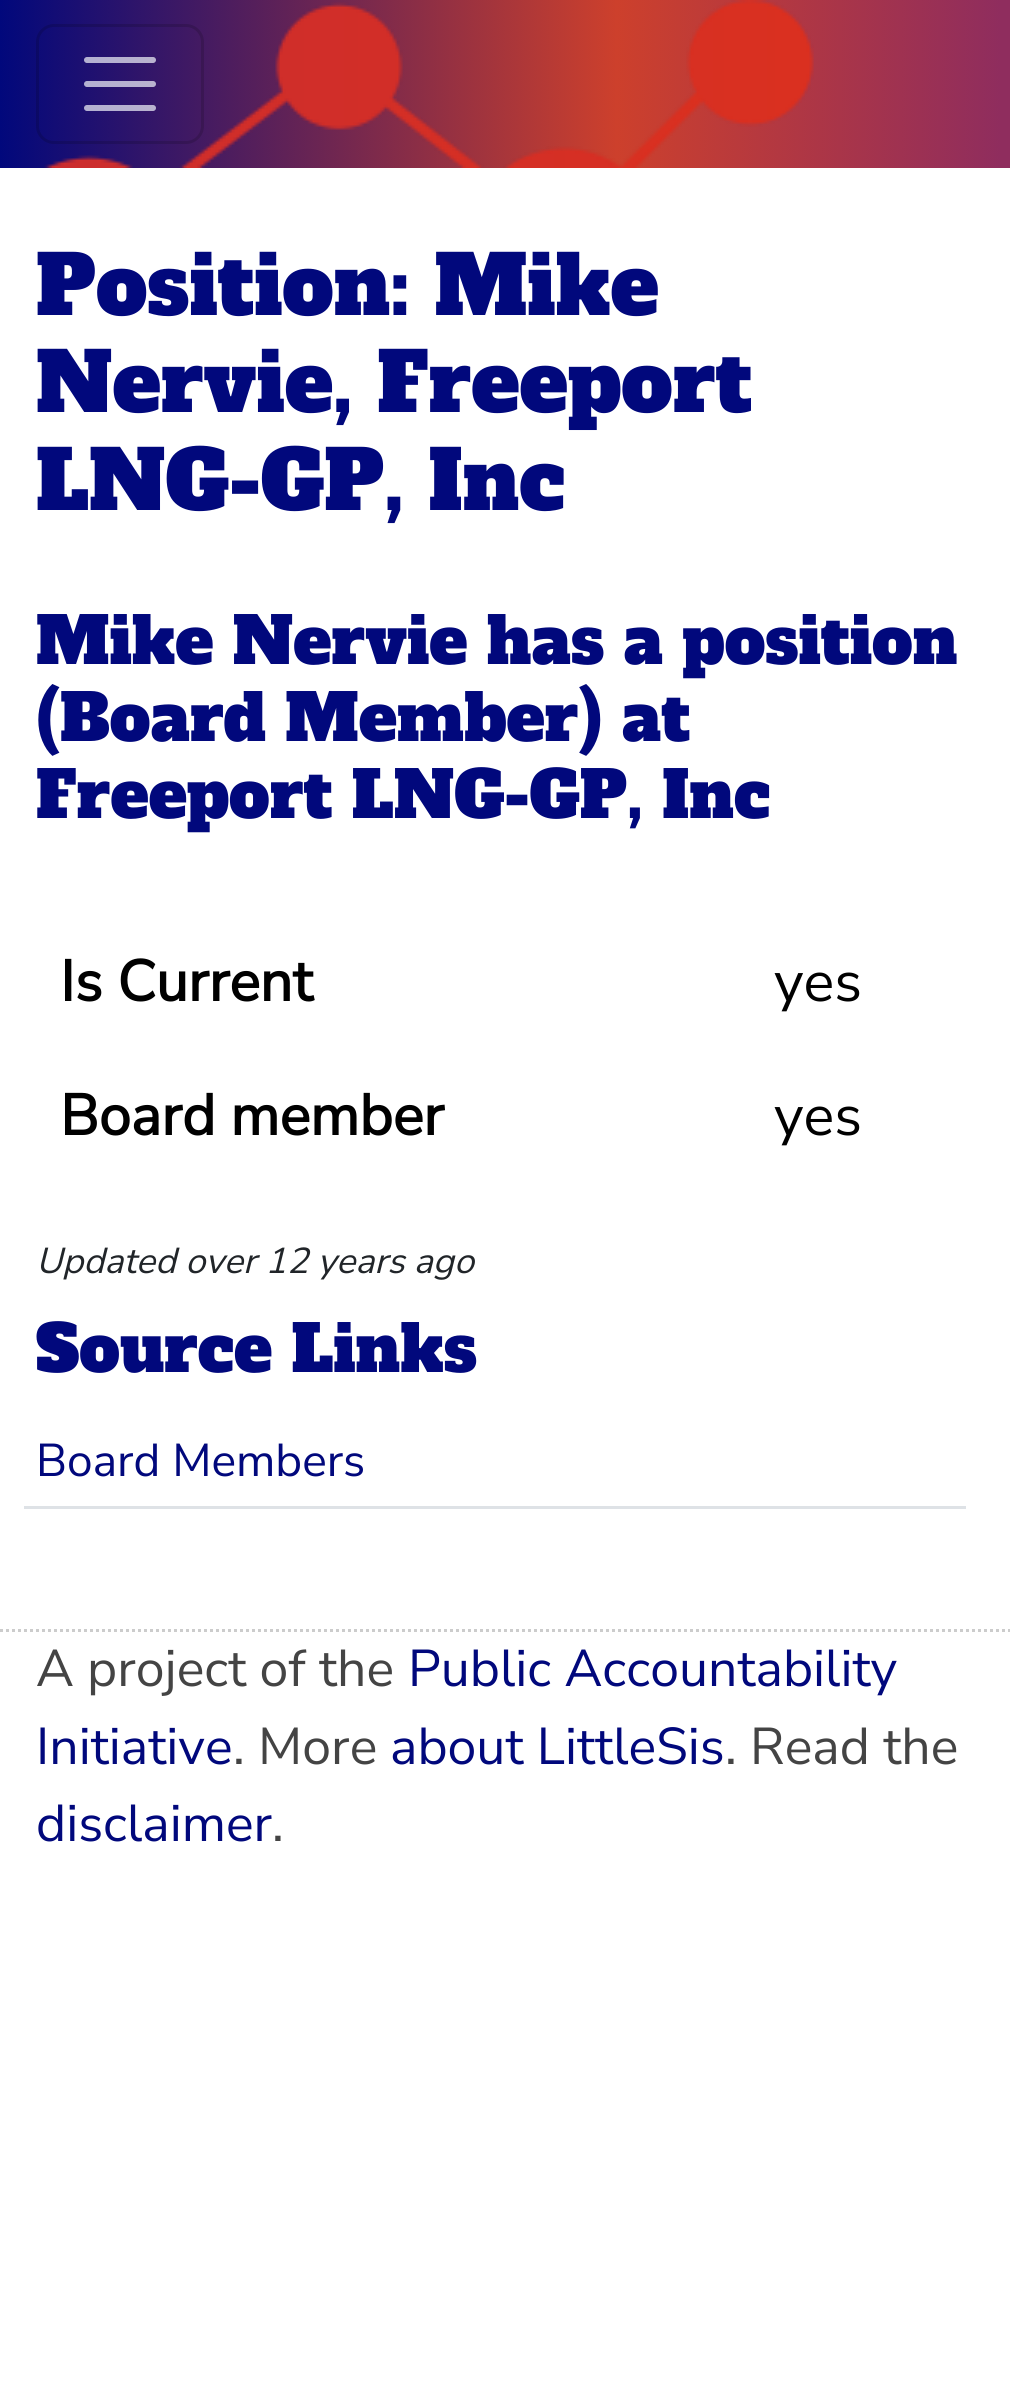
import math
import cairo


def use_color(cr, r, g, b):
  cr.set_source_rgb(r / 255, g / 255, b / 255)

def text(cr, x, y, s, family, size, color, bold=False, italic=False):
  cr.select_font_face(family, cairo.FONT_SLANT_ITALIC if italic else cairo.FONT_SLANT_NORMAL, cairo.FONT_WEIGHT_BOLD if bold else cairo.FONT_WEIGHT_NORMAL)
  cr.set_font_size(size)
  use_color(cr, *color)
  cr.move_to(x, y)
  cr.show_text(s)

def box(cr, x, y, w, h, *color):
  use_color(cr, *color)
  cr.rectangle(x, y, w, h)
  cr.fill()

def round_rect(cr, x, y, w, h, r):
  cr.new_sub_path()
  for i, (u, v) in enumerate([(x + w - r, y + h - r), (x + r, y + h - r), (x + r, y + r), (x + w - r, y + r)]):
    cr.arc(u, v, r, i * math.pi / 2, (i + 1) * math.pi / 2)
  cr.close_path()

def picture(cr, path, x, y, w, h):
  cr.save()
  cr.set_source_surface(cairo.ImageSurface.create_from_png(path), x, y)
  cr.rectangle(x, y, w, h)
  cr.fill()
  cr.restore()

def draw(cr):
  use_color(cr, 255, 255, 255)
  cr.paint()
  picture(cr, "img_01.png", 0, 0, 1010, 168)
  round_rect(cr, 37.5, 25.5, 165, 117, 16.5)
  cr.set_source_rgba(0, 0, 0, 0.15)
  cr.set_line_width(3)
  cr.stroke()
  cr.new_path()
  cr.move_to(87, 60)
  cr.line_to(153, 60)
  cr.move_to(87, 84)
  cr.line_to(153, 84)
  cr.move_to(87, 108)
  cr.line_to(153, 108)
  cr.set_source_rgba(0.898, 0.902, 0.945, 0.75)
  cr.set_line_width(6)
  cr.set_line_cap(cairo.LINE_CAP_ROUND)
  cr.stroke()
  box(cr, 24, 1506, 942, 3, 222, 226, 230)
  cr.new_path()
  cr.move_to(0, 1630.5)
  cr.line_to(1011, 1630.5)
  use_color(cr, 204, 204, 204)
  cr.set_line_width(3)
  cr.set_line_cap(cairo.LINE_CAP_BUTT)
  cr.set_dash([3, 3])
  cr.stroke()
  text(cr, 36, 315, "Position: Mike", "Alfa Slab One", 81.25, (1, 8, 124))
  text(cr, 36, 412, "Nervie, Freeport", "Alfa Slab One", 81.25, (1, 8, 124))
  text(cr, 36, 510, "LNG-GP, Inc", "Alfa Slab One", 81.25, (1, 8, 124))
  text(cr, 36, 664, "Mike Nervie has a position", "Alfa Slab One", 64.25, (1, 8, 124))
  text(cr, 36, 741, "(Board Member) at", "Alfa Slab One", 64.25, (1, 8, 124))
  text(cr, 36, 818, "Freeport LNG-GP, Inc", "Alfa Slab One", 64.25, (1, 8, 124))
  text(cr, 60, 1001, "Is Current", "Nunito Sans", 57.5, (0, 0, 0), bold=True)
  text(cr, 774, 1001, "yes", "Nunito Sans", 57.5, (0, 0, 0))
  text(cr, 60, 1135, "Board member", "Nunito Sans", 57.5, (0, 0, 0), bold=True)
  text(cr, 774, 1135, "yes", "Nunito Sans", 57.5, (0, 0, 0))
  text(cr, 36, 1273, "Updated over 12 years ago", "Nunito Sans", 36, (33, 37, 41), italic=True)
  text(cr, 36, 1372, "Source Links", "Alfa Slab One", 64.25, (1, 8, 124))
  text(cr, 36, 1476, "Board Members", "Nunito Sans", 46, (1, 8, 124))
  text(cr, 36, 1686, "A project of the", "Nunito Sans", 51.75, (68, 68, 68))
  text(cr, 408, 1686, "Public Accountability", "Nunito Sans", 51.75, (1, 8, 124))
  text(cr, 36, 1764, "Initiative", "Nunito Sans", 51.75, (1, 8, 124))
  text(cr, 233, 1764, ". More", "Nunito Sans", 51.75, (68, 68, 68))
  text(cr, 390, 1764, "about LittleSis", "Nunito Sans", 51.75, (1, 8, 124))
  text(cr, 725, 1764, ". Read the", "Nunito Sans", 51.75, (68, 68, 68))
  text(cr, 36, 1841, "disclaimer", "Nunito Sans", 51.75, (1, 8, 124))
  text(cr, 272, 1841, ".", "Nunito Sans", 51.75, (68, 68, 68))


surface = cairo.ImageSurface(cairo.FORMAT_RGB24, 1010, 2395)
cr = cairo.Context(surface)
options = cairo.FontOptions()
options.set_hint_metrics(cairo.HINT_METRICS_OFF)
options.set_hint_style(cairo.HINT_STYLE_NONE)
cr.set_font_options(options)
cr.set_miter_limit(4)
draw(cr)
surface.write_to_png("out.png")
